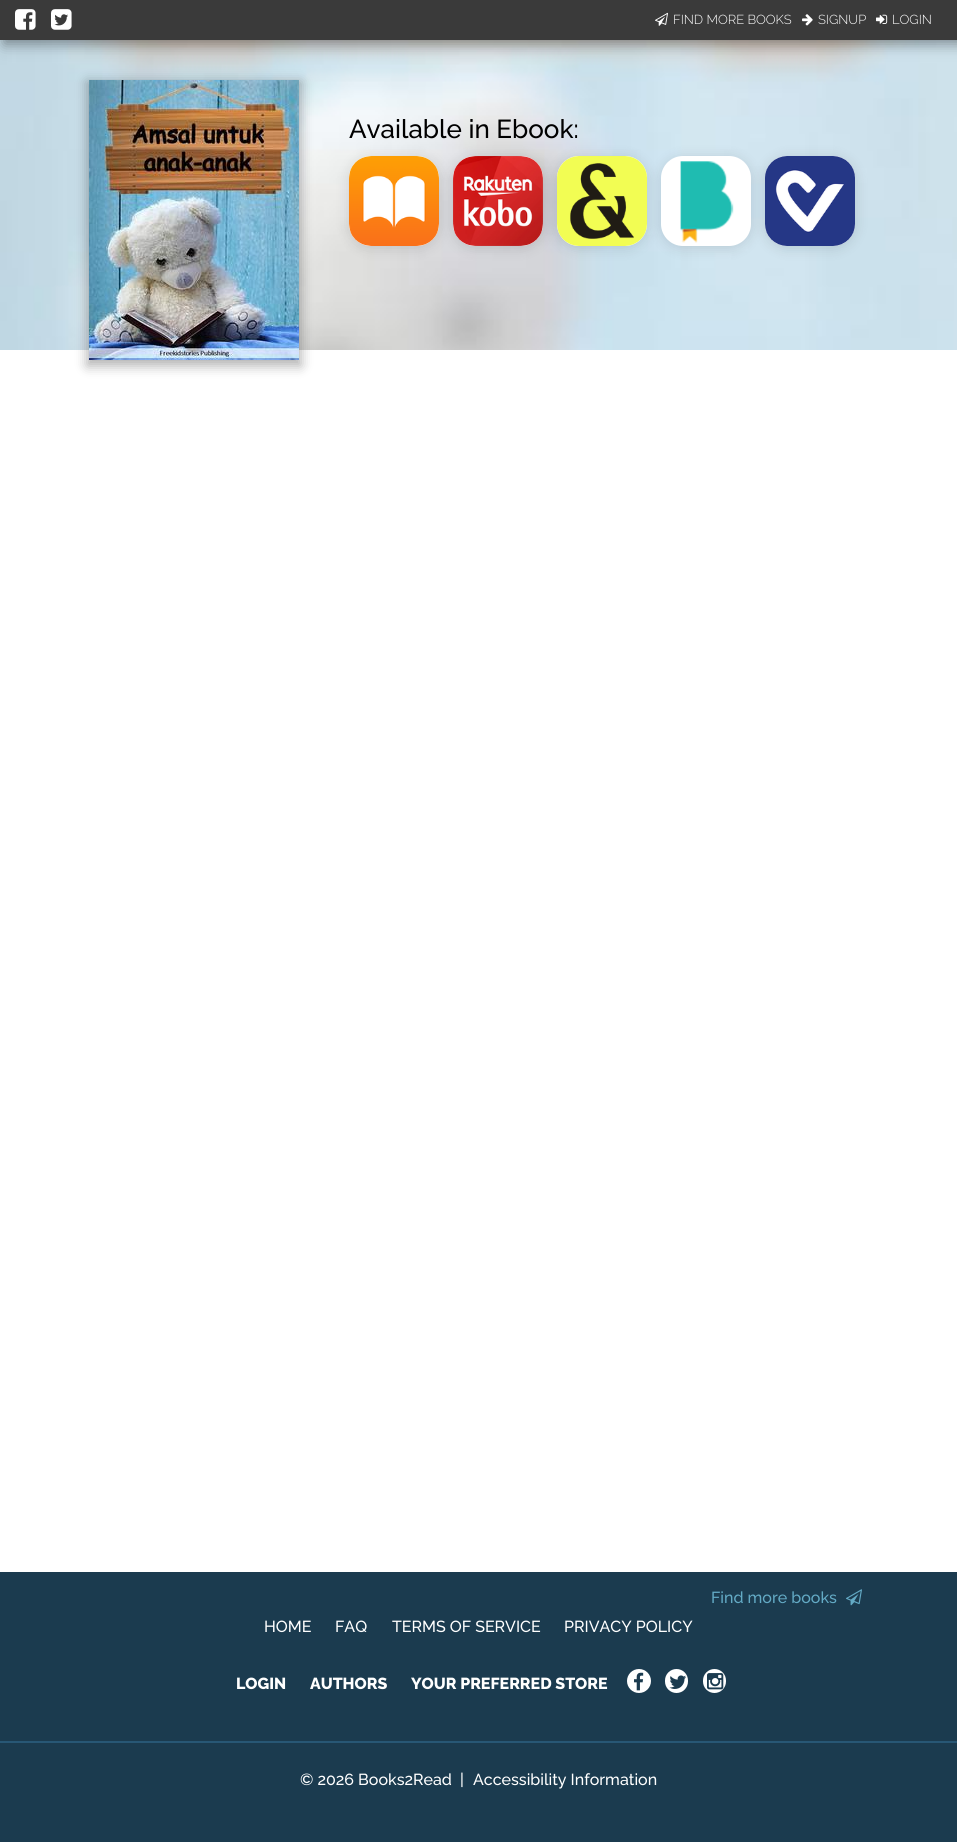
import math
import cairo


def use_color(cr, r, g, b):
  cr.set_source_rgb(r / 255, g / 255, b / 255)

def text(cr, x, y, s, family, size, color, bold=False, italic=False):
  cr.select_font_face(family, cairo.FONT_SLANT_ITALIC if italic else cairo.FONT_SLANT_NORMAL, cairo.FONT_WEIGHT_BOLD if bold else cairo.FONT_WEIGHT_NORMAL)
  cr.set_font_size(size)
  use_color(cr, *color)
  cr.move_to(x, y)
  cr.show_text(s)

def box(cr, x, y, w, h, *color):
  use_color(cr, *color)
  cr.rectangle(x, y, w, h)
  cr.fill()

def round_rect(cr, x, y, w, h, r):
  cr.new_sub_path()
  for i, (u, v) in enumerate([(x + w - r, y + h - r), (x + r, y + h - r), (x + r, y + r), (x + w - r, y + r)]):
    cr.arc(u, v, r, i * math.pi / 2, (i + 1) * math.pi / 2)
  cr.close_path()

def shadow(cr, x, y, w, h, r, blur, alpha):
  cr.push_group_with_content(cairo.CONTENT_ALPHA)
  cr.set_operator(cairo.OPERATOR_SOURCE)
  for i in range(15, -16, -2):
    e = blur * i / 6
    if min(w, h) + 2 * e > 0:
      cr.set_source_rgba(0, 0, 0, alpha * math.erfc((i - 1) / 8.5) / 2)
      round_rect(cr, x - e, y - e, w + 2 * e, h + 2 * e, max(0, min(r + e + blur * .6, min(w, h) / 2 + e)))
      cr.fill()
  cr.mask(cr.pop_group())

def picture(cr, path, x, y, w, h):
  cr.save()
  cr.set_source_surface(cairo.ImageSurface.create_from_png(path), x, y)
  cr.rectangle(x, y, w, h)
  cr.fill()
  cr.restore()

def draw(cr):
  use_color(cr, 255, 255, 255)
  cr.paint()
  picture(cr, "img_01.png", 0, 40, 957, 310)
  use_color(cr, 0, 0, 0)
  shadow(cr, 4, 4, 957, 40, 0, 7, 0.4)
  box(cr, 0, 0, 957, 40, 58, 58, 58)
  picture(cr, "img_02.png", 15, 9, 21, 21)
  picture(cr, "img_03.png", 51, 9, 21, 21)
  picture(cr, "img_04.png", 655, 12, 13, 14)
  picture(cr, "img_05.png", 802, 14, 11, 12)
  picture(cr, "img_06.png", 876, 14, 12, 10)
  use_color(cr, 0, 0, 0)
  shadow(cr, 87, 82, 214, 284, 0, 6, 0.3)
  picture(cr, "img_07.png", 89, 80, 210, 280)
  shadow(cr, 347, 156, 94, 94, 24, 6, 0.1)
  use_color(cr, 255, 255, 255)
  round_rect(cr, 349, 156, 90, 90, 22)
  cr.fill()
  picture(cr, "img_08.png", 349, 156, 90, 90)
  use_color(cr, 0, 0, 0)
  shadow(cr, 451, 156, 94, 94, 24, 6, 0.1)
  use_color(cr, 255, 255, 255)
  round_rect(cr, 453, 156, 90, 90, 22)
  cr.fill()
  picture(cr, "img_09.png", 453, 156, 90, 90)
  use_color(cr, 0, 0, 0)
  shadow(cr, 555, 156, 94, 94, 24, 6, 0.1)
  use_color(cr, 255, 255, 255)
  round_rect(cr, 557, 156, 90, 90, 22)
  cr.fill()
  picture(cr, "img_10.png", 557, 156, 90, 90)
  use_color(cr, 0, 0, 0)
  shadow(cr, 659, 156, 94, 94, 24, 6, 0.1)
  use_color(cr, 255, 255, 255)
  round_rect(cr, 661, 156, 90, 90, 22)
  cr.fill()
  use_color(cr, 0, 0, 0)
  shadow(cr, 763, 156, 94, 94, 24, 6, 0.1)
  use_color(cr, 255, 255, 255)
  round_rect(cr, 765, 156, 90, 90, 22)
  cr.fill()
  picture(cr, "img_11.png", 680, 161, 54, 82)
  picture(cr, "img_12.png", 765, 156, 90, 90)
  box(cr, 0, 1572, 957, 270, 27, 59, 79)
  picture(cr, "img_13.png", 846, 1589, 16, 17)
  use_color(cr, 255, 255, 255)
  cr.arc(639, 1681, 12, 0, 2 * math.pi)
  cr.fill()
  picture(cr, "img_14.png", 634, 1672, 10, 19)
  round_rect(cr, 665, 1669, 23, 24, 11.5)
  cr.fill()
  picture(cr, "img_15.png", 669, 1675, 17, 14)
  round_rect(cr, 703, 1669, 23, 24, 11.5)
  cr.fill()
  picture(cr, "img_16.png", 707, 1673, 17, 17)
  box(cr, 0, 1741, 957, 2, 40, 87, 117)
  text(cr, 673, 24, "FIND MORE BOOKS", "Raleway Light", 13, (255, 255, 255))
  text(cr, 818, 24, "SIGNUP", "Raleway Light", 13, (255, 255, 255))
  text(cr, 892, 24, "LOGIN", "Raleway Light", 13, (255, 255, 255))
  text(cr, 349, 138, "Available in Ebook:", "Raleway Medium", 26, (0, 0, 0))
  text(cr, 711, 1603, "Find more books", "Raleway Medium", 16, (99, 170, 197))
  text(cr, 264, 1632, "HOME", "Raleway Medium", 16, (255, 255, 255))
  text(cr, 335, 1632, "FAQ", "Raleway Medium", 16, (255, 255, 255))
  text(cr, 392, 1632, "TERMS OF SERVICE", "Raleway Medium", 16, (255, 255, 255))
  text(cr, 564, 1632, "PRIVACY POLICY", "Raleway Medium", 16, (255, 255, 255))
  text(cr, 236, 1689, "LOGIN", "Raleway ExtraBold", 16, (255, 255, 255))
  text(cr, 310, 1689, "AUTHORS", "Raleway ExtraBold", 16, (255, 255, 255))
  text(cr, 411, 1689, "YOUR PREFERRED STORE", "Raleway ExtraBold", 16, (255, 255, 255))
  text(cr, 300, 1785, "© 2026 Books2Read", "Raleway Medium", 16, (255, 255, 255))
  text(cr, 460, 1785, "|", "Raleway Medium", 16, (255, 255, 255))
  text(cr, 473, 1785, "Accessibility Information", "Raleway Medium", 16, (255, 255, 255))


surface = cairo.ImageSurface(cairo.FORMAT_RGB24, 957, 1842)
cr = cairo.Context(surface)
options = cairo.FontOptions()
options.set_hint_metrics(cairo.HINT_METRICS_OFF)
options.set_hint_style(cairo.HINT_STYLE_NONE)
cr.set_font_options(options)
cr.set_miter_limit(4)
draw(cr)
surface.write_to_png("out.png")
